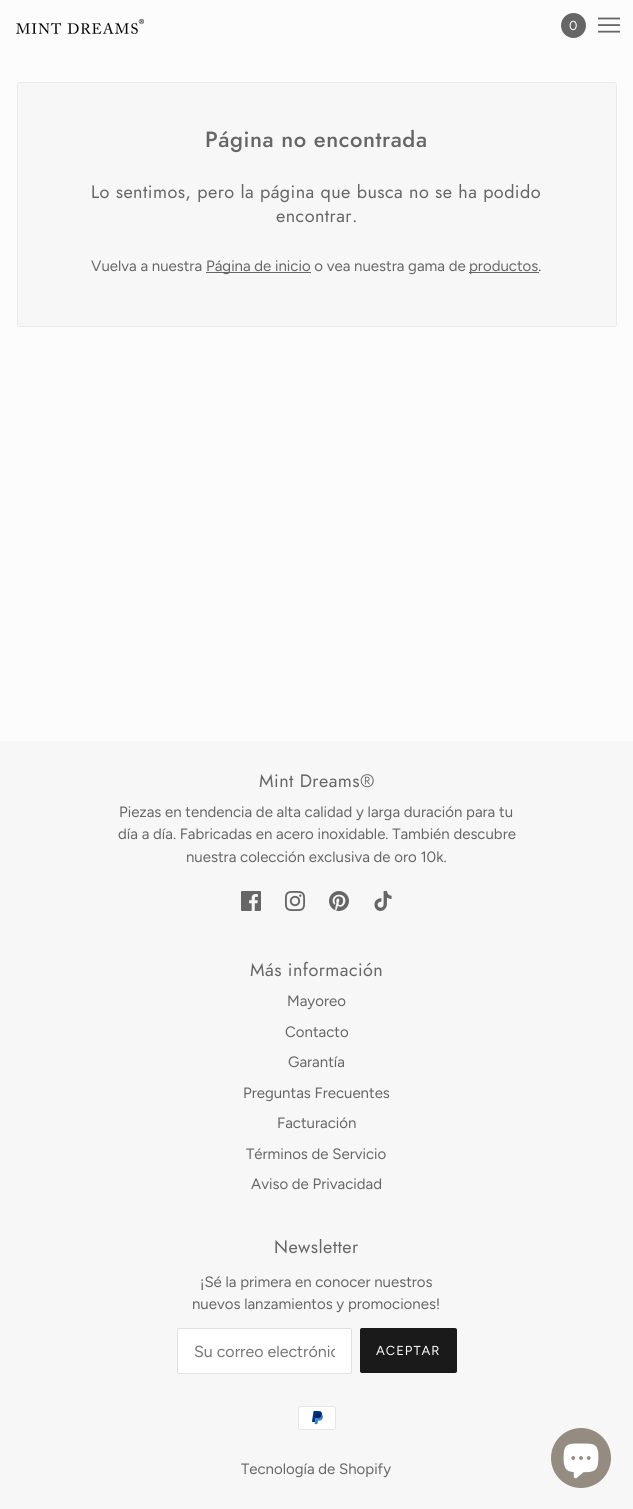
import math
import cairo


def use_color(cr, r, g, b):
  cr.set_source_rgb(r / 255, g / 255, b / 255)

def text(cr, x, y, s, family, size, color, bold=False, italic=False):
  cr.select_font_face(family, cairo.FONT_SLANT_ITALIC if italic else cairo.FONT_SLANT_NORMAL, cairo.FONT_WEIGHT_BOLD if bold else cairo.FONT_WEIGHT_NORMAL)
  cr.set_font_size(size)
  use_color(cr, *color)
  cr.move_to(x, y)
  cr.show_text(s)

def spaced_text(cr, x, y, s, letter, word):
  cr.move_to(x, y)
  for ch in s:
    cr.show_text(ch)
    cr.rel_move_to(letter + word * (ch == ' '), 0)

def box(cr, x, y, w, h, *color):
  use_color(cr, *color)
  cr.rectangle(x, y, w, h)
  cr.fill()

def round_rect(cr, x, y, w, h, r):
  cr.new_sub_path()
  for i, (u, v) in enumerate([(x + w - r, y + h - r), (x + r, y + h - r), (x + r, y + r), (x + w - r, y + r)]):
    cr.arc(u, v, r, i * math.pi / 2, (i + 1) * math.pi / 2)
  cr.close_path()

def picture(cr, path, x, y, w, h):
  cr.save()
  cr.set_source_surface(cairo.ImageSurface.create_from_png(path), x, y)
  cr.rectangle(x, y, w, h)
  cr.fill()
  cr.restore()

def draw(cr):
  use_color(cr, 252, 252, 252)
  cr.paint()
  picture(cr, "img_01.png", 16, 19, 128, 15)
  use_color(cr, 102, 102, 102)
  cr.arc(573.5, 25.5, 12.5, 0, 2 * math.pi)
  cr.fill()
  picture(cr, "img_02.png", 598, 17, 22, 16)
  use_color(cr, 247, 247, 247)
  round_rect(cr, 17.5, 82.5, 599, 244, 2.5)
  cr.fill_preserve()
  use_color(cr, 234, 234, 234)
  cr.set_line_width(1)
  cr.stroke()
  box(cr, 206, 272, 105, 1, 102, 102, 102)
  box(cr, 469, 272, 70, 1, 102, 102, 102)
  box(cr, 0, 741, 633, 768, 247, 247, 247)
  picture(cr, "img_03.png", 241, 891, 20, 20)
  picture(cr, "img_04.png", 285, 891, 20, 20)
  picture(cr, "img_05.png", 329, 891, 20, 20)
  picture(cr, "img_06.png", 374, 891, 18, 20)
  use_color(cr, 255, 255, 255)
  round_rect(cr, 177.5, 1328.5, 174, 45, 1.5)
  cr.fill_preserve()
  use_color(cr, 224, 224, 224)
  cr.stroke()
  use_color(cr, 26, 26, 26)
  round_rect(cr, 360, 1328, 97, 45, 2)
  cr.fill()
  picture(cr, "img_07.png", 298, 1406, 38, 24)
  use_color(cr, 148, 139, 129)
  cr.arc(581, 1458, 30, 0, 2 * math.pi)
  cr.fill()
  picture(cr, "img_08.png", 563, 1443, 36, 36)
  cr.select_font_face("Figtree")
  cr.set_font_size(13)
  use_color(cr, 255, 255, 255)
  spaced_text(cr, 569, 30, "0", 1, 0)
  cr.select_font_face("Jost Medium")
  cr.set_font_size(22)
  use_color(cr, 102, 102, 102)
  spaced_text(cr, 205, 147, "Página no encontrada", 0.55, 0)
  cr.select_font_face("Jost")
  cr.set_font_size(18)
  spaced_text(cr, 91, 198, "Lo sentimos, pero la página que busca no se ha podido", 0.45, 0)
  spaced_text(cr, 276, 222, "encontrar.", 0.45, 0)
  text(cr, 91, 271, "Vuelva a nuestra", "Figtree", 15, (102, 102, 102))
  text(cr, 206, 271, "Página de inicio o vea nuestra gama de", "Figtree", 15, (102, 102, 102))
  text(cr, 469, 271, "productos.", "Figtree", 15, (102, 102, 102))
  cr.select_font_face("Jost")
  cr.set_font_size(18)
  spaced_text(cr, 259, 787, "Mint Dreams®", 0.45, 0)
  text(cr, 119, 817, "Piezas en tendencia de alta calidad y larga duración para tu", "Figtree", 15, (102, 102, 102))
  text(cr, 118, 839, "día a día. Fabricadas en acero inoxidable. También descubre", "Figtree", 15, (102, 102, 102))
  text(cr, 186, 862, "nuestra colección exclusiva de oro 10k.", "Figtree", 15, (102, 102, 102))
  cr.select_font_face("Jost")
  cr.set_font_size(18)
  spaced_text(cr, 250, 976, "Más información", 0.45, 0)
  text(cr, 287, 1006, "Mayoreo", "Figtree", 15, (102, 102, 102))
  text(cr, 285, 1037, "Contacto", "Figtree", 15, (102, 102, 102))
  text(cr, 288, 1067, "Garantía", "Figtree", 15, (102, 102, 102))
  text(cr, 243, 1098, "Preguntas Frecuentes", "Figtree", 15, (102, 102, 102))
  text(cr, 277, 1128, "Facturación", "Figtree", 15, (102, 102, 102))
  text(cr, 246, 1159, "Términos de Servicio", "Figtree", 15, (102, 102, 102))
  text(cr, 251, 1189, "Aviso de Privacidad", "Figtree", 15, (102, 102, 102))
  cr.select_font_face("Jost")
  cr.set_font_size(18)
  spaced_text(cr, 274, 1253, "Newsletter", 0.45, 0)
  text(cr, 200, 1287, "¡Sé la primera en conocer nuestros", "Figtree", 15, (102, 102, 102))
  text(cr, 192, 1309, "nuevos lanzamientos y promociones!", "Figtree", 15, (102, 102, 102))
  cr.save()
  cr.rectangle(194, 1342, 141, 19)
  cr.clip()
  text(cr, 194, 1357, "Su correo electrónic", "Figtree", 16, (117, 117, 117))
  cr.restore()
  cr.set_font_size(13)
  use_color(cr, 255, 255, 255)
  spaced_text(cr, 376, 1355, "ACEPTAR", 1, 0)
  text(cr, 241, 1474, "Tecnología de Shopify", "Figtree", 15, (102, 102, 102))


surface = cairo.ImageSurface(cairo.FORMAT_RGB24, 633, 1509)
cr = cairo.Context(surface)
options = cairo.FontOptions()
options.set_hint_metrics(cairo.HINT_METRICS_OFF)
options.set_hint_style(cairo.HINT_STYLE_NONE)
cr.set_font_options(options)
cr.set_miter_limit(4)
draw(cr)
surface.write_to_png("out.png")
